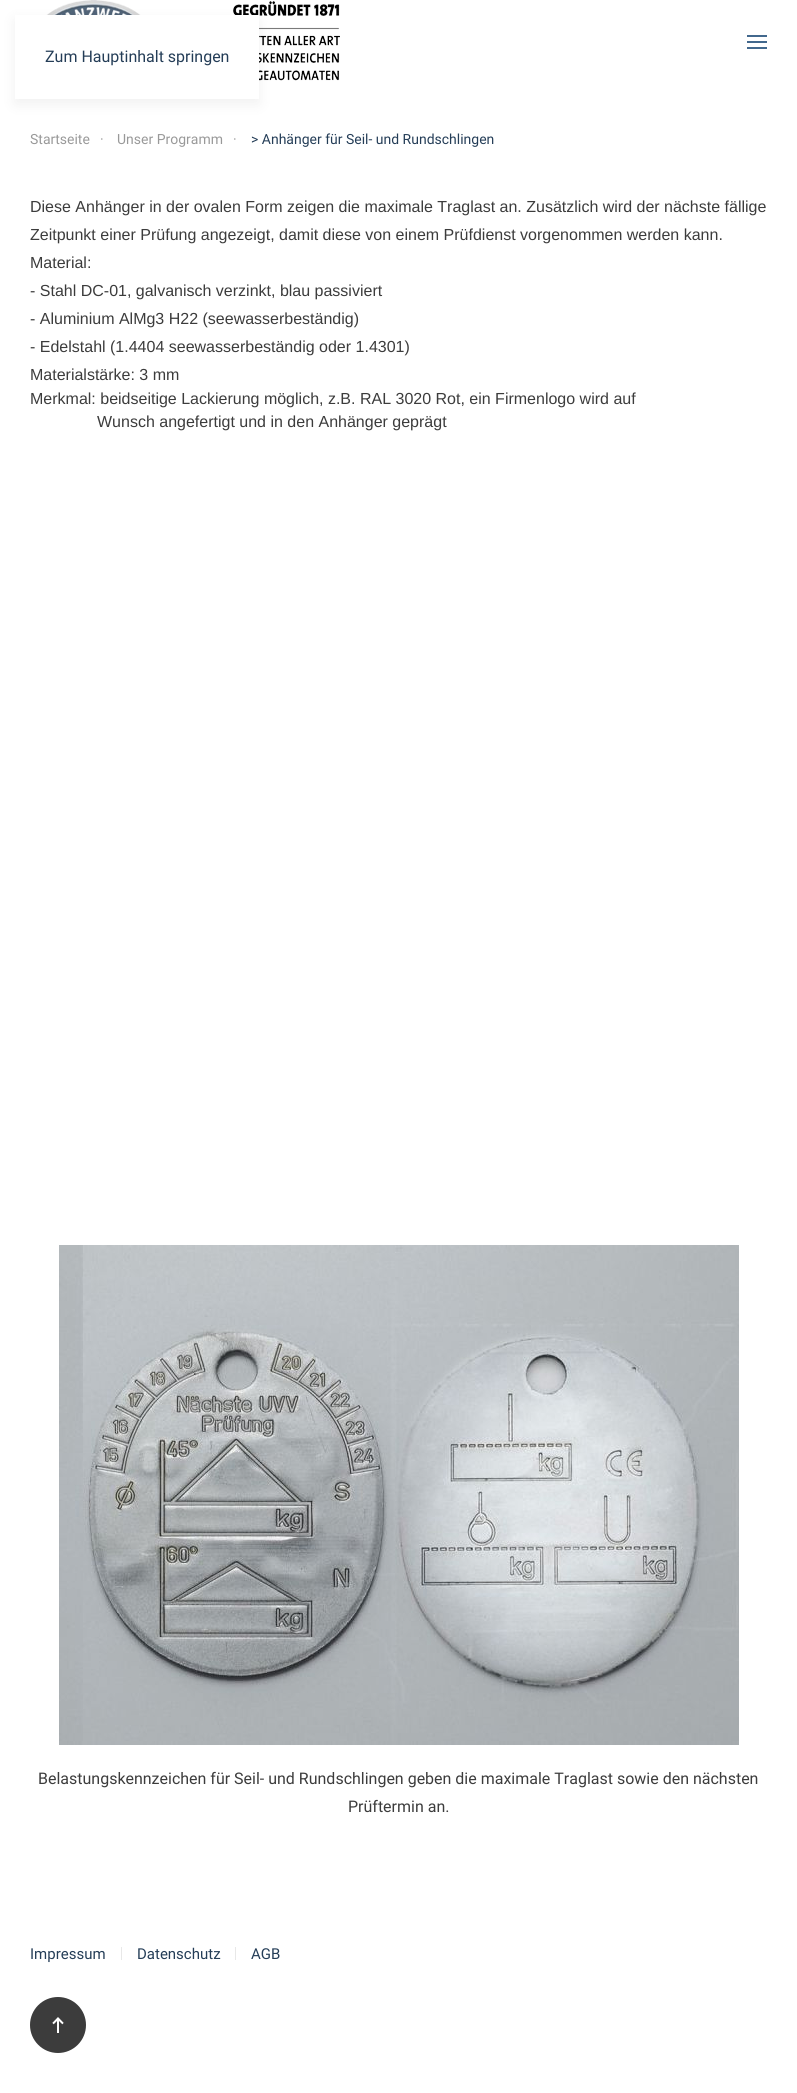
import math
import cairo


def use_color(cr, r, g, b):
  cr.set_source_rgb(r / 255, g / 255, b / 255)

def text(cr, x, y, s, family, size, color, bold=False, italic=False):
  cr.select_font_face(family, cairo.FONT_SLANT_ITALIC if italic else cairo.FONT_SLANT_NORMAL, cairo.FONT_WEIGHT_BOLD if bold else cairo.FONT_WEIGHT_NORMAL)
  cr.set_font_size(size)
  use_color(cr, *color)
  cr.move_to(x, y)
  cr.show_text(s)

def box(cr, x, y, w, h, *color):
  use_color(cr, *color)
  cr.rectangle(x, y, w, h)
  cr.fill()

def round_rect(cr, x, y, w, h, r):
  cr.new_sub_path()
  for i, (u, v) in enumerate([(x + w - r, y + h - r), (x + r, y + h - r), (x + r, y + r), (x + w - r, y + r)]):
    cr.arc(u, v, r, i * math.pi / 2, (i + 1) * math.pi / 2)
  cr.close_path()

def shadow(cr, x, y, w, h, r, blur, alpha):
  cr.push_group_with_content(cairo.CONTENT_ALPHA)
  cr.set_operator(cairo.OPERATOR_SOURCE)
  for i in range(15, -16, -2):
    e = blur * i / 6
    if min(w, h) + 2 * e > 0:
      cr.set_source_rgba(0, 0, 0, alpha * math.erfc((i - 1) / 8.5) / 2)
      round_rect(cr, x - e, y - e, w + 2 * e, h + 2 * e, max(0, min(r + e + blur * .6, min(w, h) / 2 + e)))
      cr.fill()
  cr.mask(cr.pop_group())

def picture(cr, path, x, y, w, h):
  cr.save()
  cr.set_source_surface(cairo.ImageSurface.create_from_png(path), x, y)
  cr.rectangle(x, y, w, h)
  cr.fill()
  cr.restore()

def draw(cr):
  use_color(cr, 255, 255, 255)
  cr.paint()
  picture(cr, "img_01.png", 46, 0, 294, 81)
  use_color(cr, 0, 0, 0)
  shadow(cr, 15, 20, 244, 84, 0, 7.5, 0.06)
  box(cr, 15, 15, 244, 84, 255, 255, 255)
  box(cr, 747, 35, 20, 2, 66, 104, 141)
  box(cr, 747, 41, 20, 2, 66, 104, 141)
  box(cr, 747, 47, 20, 2, 66, 104, 141)
  picture(cr, "img_02.png", 59, 1245, 680, 500)
  box(cr, 121, 1947, 1, 13, 232, 232, 232)
  box(cr, 235, 1947, 1, 13, 232, 232, 232)
  use_color(cr, 60, 60, 60)
  cr.arc(58, 2025, 28, 0, 2 * math.pi)
  cr.fill()
  picture(cr, "img_03.png", 52, 2017, 12, 16)
  text(cr, 45, 62, "Zum Hauptinhalt springen", "Roboto", 16, (36, 61, 87))
  text(cr, 30, 144, "Startseite", "Roboto", 14, (153, 153, 153))
  text(cr, 100, 144, "·", "Roboto", 14, (153, 153, 153))
  text(cr, 117, 144, "Unser Programm", "Roboto", 14, (153, 153, 153))
  text(cr, 233, 144, "·", "Roboto", 14, (153, 153, 153))
  text(cr, 251, 144, "> Anhänger für Seil- und Rundschlingen", "Roboto", 14, (36, 61, 87))
  text(cr, 30, 212, "Diese Anhänger in der ovalen Form zeigen die maximale Traglast an. Zusätzlich wird der nächste fällige", "Liberation Sans", 16, (60, 60, 60))
  text(cr, 30, 240, "Zeitpunkt einer Prüfung angezeigt, damit diese von einem Prüfdienst vorgenommen werden kann.", "Liberation Sans", 16, (60, 60, 60))
  text(cr, 30, 268, "Material:", "Liberation Sans", 16, (60, 60, 60))
  text(cr, 30, 296, "- Stahl DC-01, galvanisch verzinkt, blau passiviert", "Liberation Sans", 16, (60, 60, 60))
  text(cr, 30, 324, "- Aluminium AlMg3 H22 (seewasserbeständig)", "Liberation Sans", 16, (60, 60, 60))
  text(cr, 30, 352, "- Edelstahl (1.4404 seewasserbeständig oder 1.4301)", "Liberation Sans", 16, (60, 60, 60))
  text(cr, 30, 380, "Materialstärke: 3 mm", "Liberation Sans", 16, (60, 60, 60))
  text(cr, 30, 404, "Merkmal: beidseitige Lackierung möglich, z.B. RAL 3020 Rot, ein Firmenlogo wird auf", "Liberation Sans", 16, (60, 60, 60))
  text(cr, 97, 427, "Wunsch angefertigt und in den Anhänger geprägt", "Liberation Sans", 16, (60, 60, 60))
  text(cr, 38, 1784, "Belastungskennzeichen für Seil- und Rundschlingen geben die maximale Traglast sowie den nächsten", "Roboto", 16, (60, 60, 60))
  text(cr, 348, 1812, "Prüftermin an.", "Roboto", 16, (60, 60, 60))
  text(cr, 30, 1959, "Impressum", "Roboto", 15, (36, 61, 87))
  text(cr, 137, 1959, "Datenschutz", "Roboto", 15, (36, 61, 87))
  text(cr, 251, 1959, "AGB", "Roboto", 15, (36, 61, 87))


surface = cairo.ImageSurface(cairo.FORMAT_RGB24, 797, 2093)
cr = cairo.Context(surface)
options = cairo.FontOptions()
options.set_hint_metrics(cairo.HINT_METRICS_OFF)
options.set_hint_style(cairo.HINT_STYLE_NONE)
cr.set_font_options(options)
cr.set_miter_limit(4)
draw(cr)
surface.write_to_png("out.png")
